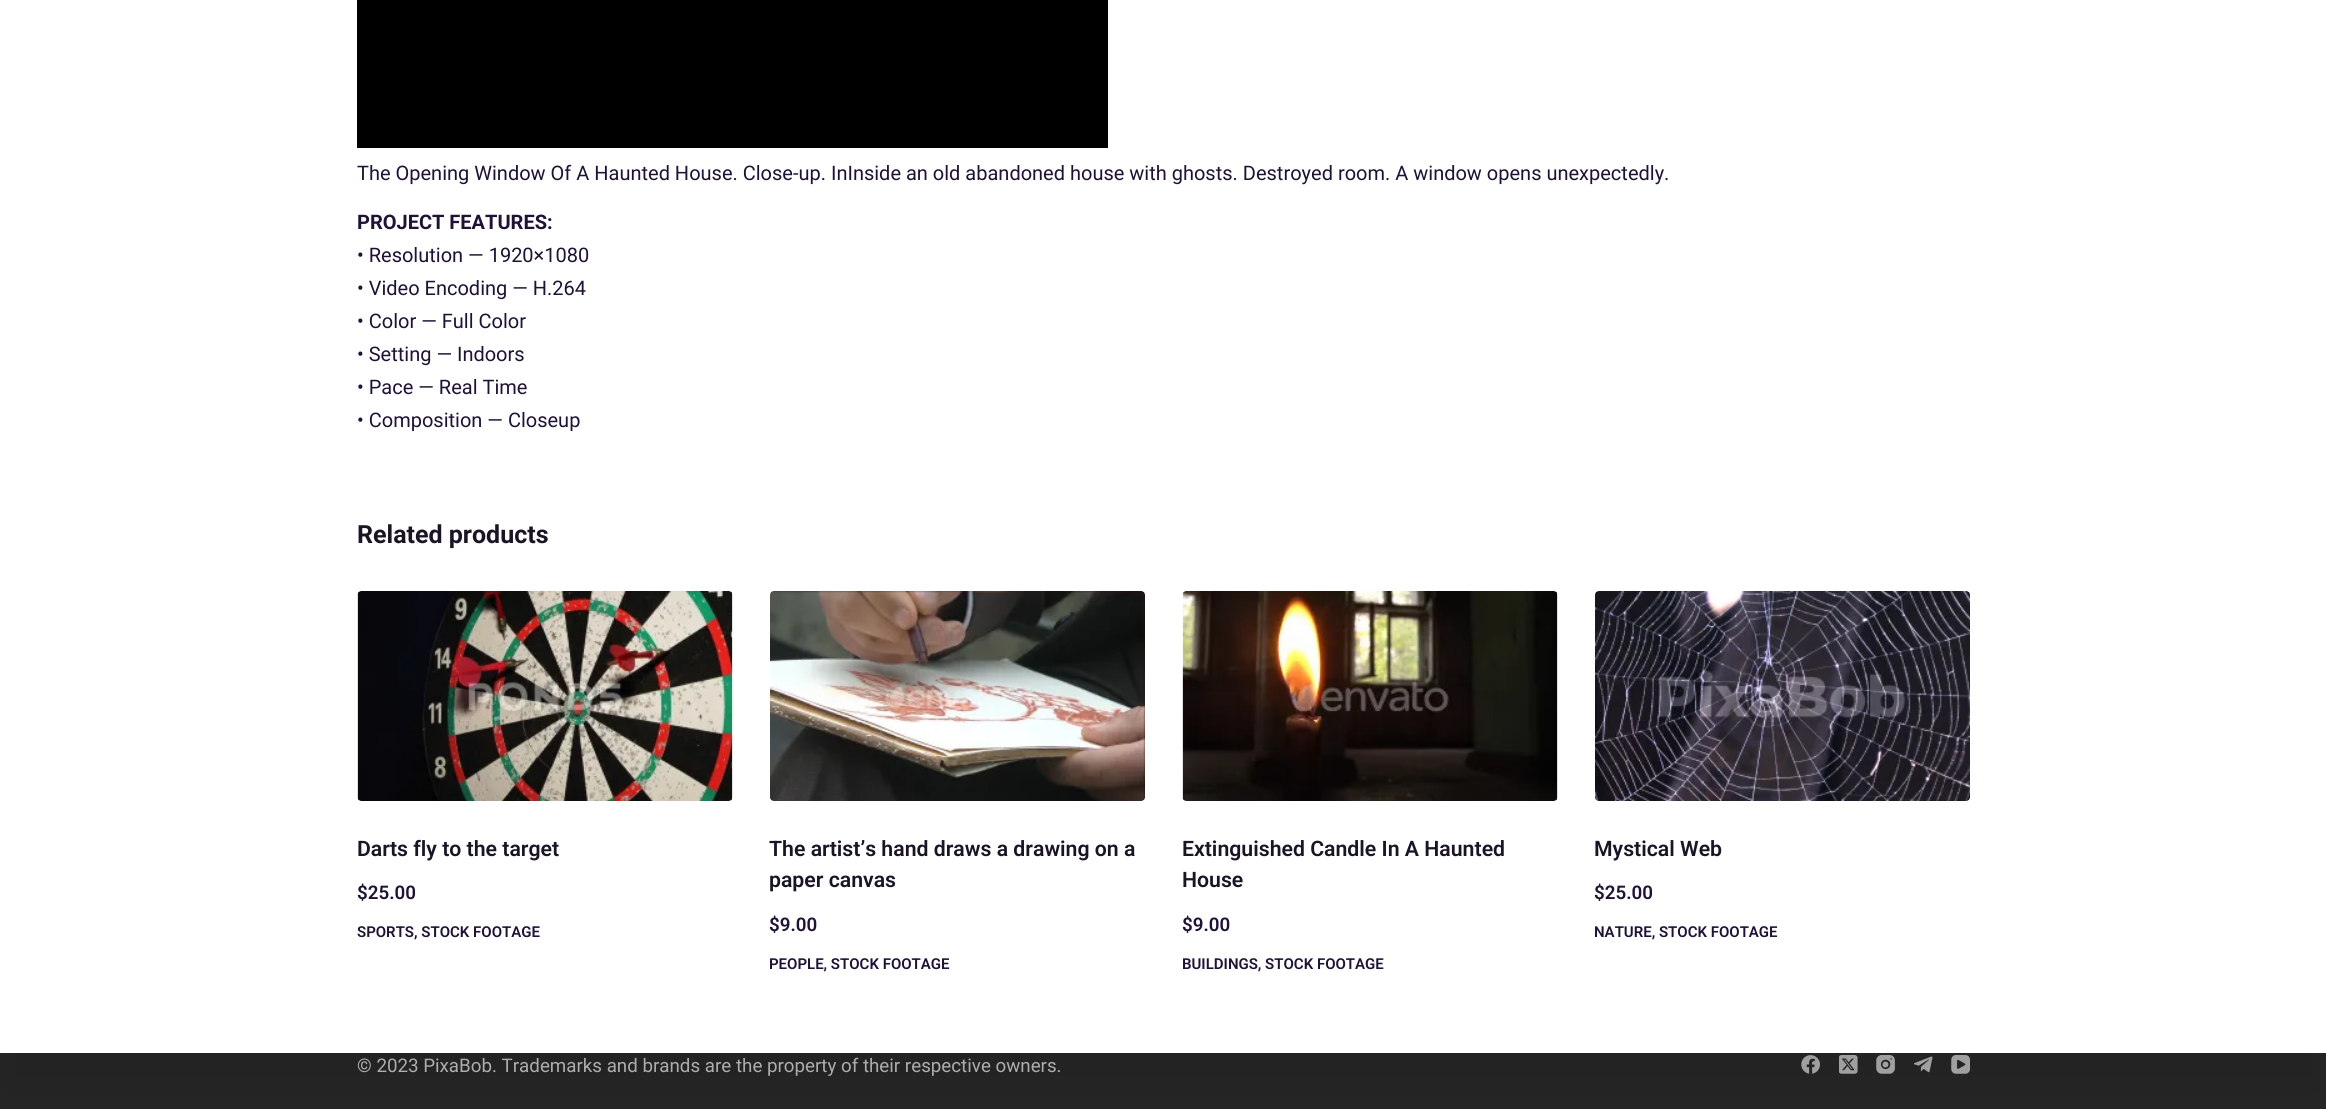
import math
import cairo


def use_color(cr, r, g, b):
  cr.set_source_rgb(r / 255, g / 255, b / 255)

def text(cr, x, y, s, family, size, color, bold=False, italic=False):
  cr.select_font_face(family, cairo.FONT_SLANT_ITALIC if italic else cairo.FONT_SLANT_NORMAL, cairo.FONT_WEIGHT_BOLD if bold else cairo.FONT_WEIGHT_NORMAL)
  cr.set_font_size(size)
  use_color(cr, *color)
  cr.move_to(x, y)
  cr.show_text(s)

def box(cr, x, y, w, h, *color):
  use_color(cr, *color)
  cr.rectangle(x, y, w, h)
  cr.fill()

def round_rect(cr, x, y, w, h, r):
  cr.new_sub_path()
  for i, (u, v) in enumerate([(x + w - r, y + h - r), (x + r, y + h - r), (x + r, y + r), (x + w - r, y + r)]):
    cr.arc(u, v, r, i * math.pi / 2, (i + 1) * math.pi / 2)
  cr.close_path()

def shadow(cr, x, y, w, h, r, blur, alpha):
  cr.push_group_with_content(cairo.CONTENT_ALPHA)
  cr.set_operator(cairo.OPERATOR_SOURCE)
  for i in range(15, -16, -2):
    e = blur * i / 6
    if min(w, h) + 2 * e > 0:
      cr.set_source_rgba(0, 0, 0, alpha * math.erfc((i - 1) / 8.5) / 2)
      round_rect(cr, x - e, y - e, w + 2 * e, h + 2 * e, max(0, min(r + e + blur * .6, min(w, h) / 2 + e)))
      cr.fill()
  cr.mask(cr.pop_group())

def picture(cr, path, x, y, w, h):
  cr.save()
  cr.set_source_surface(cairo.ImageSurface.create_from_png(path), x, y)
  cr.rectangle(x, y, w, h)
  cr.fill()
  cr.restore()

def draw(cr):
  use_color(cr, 38, 38, 38)
  cr.paint()
  picture(cr, "img_05.png", 1801, 1055, 19, 19)
  picture(cr, "img_06.png", 1839, 1055, 19, 19)
  picture(cr, "img_07.png", 1876, 1055, 19, 19)
  picture(cr, "img_08.png", 1914, 1056, 19, 17)
  picture(cr, "img_09.png", 1951, 1055, 19, 19)
  use_color(cr, 0, 0, 0)
  shadow(cr, 0, -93, 2326, 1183, 0, 31, 0.1)
  box(cr, 0, 0, 2326, 1053, 255, 255, 255)
  box(cr, 357, 0, 751, 148, 0, 0, 0)
  picture(cr, "img_01.png", 357, 591, 376, 210)
  picture(cr, "img_02.png", 770, 591, 375, 210)
  picture(cr, "img_03.png", 1182, 591, 376, 210)
  picture(cr, "img_04.png", 1595, 591, 375, 210)
  text(cr, 357, 180, "The Opening Window Of A Haunted House. Close-up. InInside an old abandoned house with ghosts. Destroyed room. A window opens unexpectedly.", "Roboto", 20, (31, 18, 53))
  text(cr, 357, 229, "PROJECT FEATURES:", "Roboto", 20, (31, 18, 53), bold=True)
  text(cr, 357, 262, "• Resolution — 1920×1080", "Roboto", 20, (31, 18, 53))
  text(cr, 357, 295, "• Video Encoding — H.264", "Roboto", 20, (31, 18, 53))
  text(cr, 357, 328, "• Color — Full Color", "Roboto", 20, (31, 18, 53))
  text(cr, 357, 361, "• Setting — Indoors", "Roboto", 20, (31, 18, 53))
  text(cr, 357, 394, "• Pace — Real Time", "Roboto", 20, (31, 18, 53))
  text(cr, 357, 427, "• Composition — Closeup", "Roboto", 20, (31, 18, 53))
  text(cr, 357, 543, "Related products", "Roboto", 25, (27, 20, 37), bold=True)
  text(cr, 357, 856, "Darts fly to the target", "Roboto SemiBold", 21.25, (27, 20, 37))
  text(cr, 357, 899, "$25.00", "Roboto SemiBold", 18.75, (31, 18, 53))
  text(cr, 357, 937, "SPORTS, STOCK FOOTAGE", "Roboto SemiBold", 15, (31, 18, 53))
  text(cr, 769, 856, "The artist’s hand draws a drawing on a", "Roboto SemiBold", 21.25, (27, 20, 37))
  text(cr, 769, 887, "paper canvas", "Roboto SemiBold", 21.25, (27, 20, 37))
  text(cr, 769, 931, "$9.00", "Roboto SemiBold", 18.75, (31, 18, 53))
  text(cr, 769, 969, "PEOPLE, STOCK FOOTAGE", "Roboto SemiBold", 15, (31, 18, 53))
  text(cr, 1182, 856, "Extinguished Candle In A Haunted", "Roboto SemiBold", 21.25, (27, 20, 37))
  text(cr, 1182, 887, "House", "Roboto SemiBold", 21.25, (27, 20, 37))
  text(cr, 1182, 931, "$9.00", "Roboto SemiBold", 18.75, (31, 18, 53))
  text(cr, 1182, 969, "BUILDINGS, STOCK FOOTAGE", "Roboto SemiBold", 15, (31, 18, 53))
  text(cr, 1594, 856, "Mystical Web", "Roboto SemiBold", 21.25, (27, 20, 37))
  text(cr, 1594, 899, "$25.00", "Roboto SemiBold", 18.75, (31, 18, 53))
  text(cr, 1594, 937, "NATURE, STOCK FOOTAGE", "Roboto SemiBold", 15, (31, 18, 53))
  text(cr, 357, 1072, "© 2023 PixaBob. Trademarks and brands are the property of their respective owners.", "Roboto", 18.75, (173, 173, 173))


surface = cairo.ImageSurface(cairo.FORMAT_RGB24, 2326, 1109)
cr = cairo.Context(surface)
options = cairo.FontOptions()
options.set_hint_metrics(cairo.HINT_METRICS_OFF)
options.set_hint_style(cairo.HINT_STYLE_NONE)
cr.set_font_options(options)
cr.set_miter_limit(4)
draw(cr)
surface.write_to_png("out.png")
